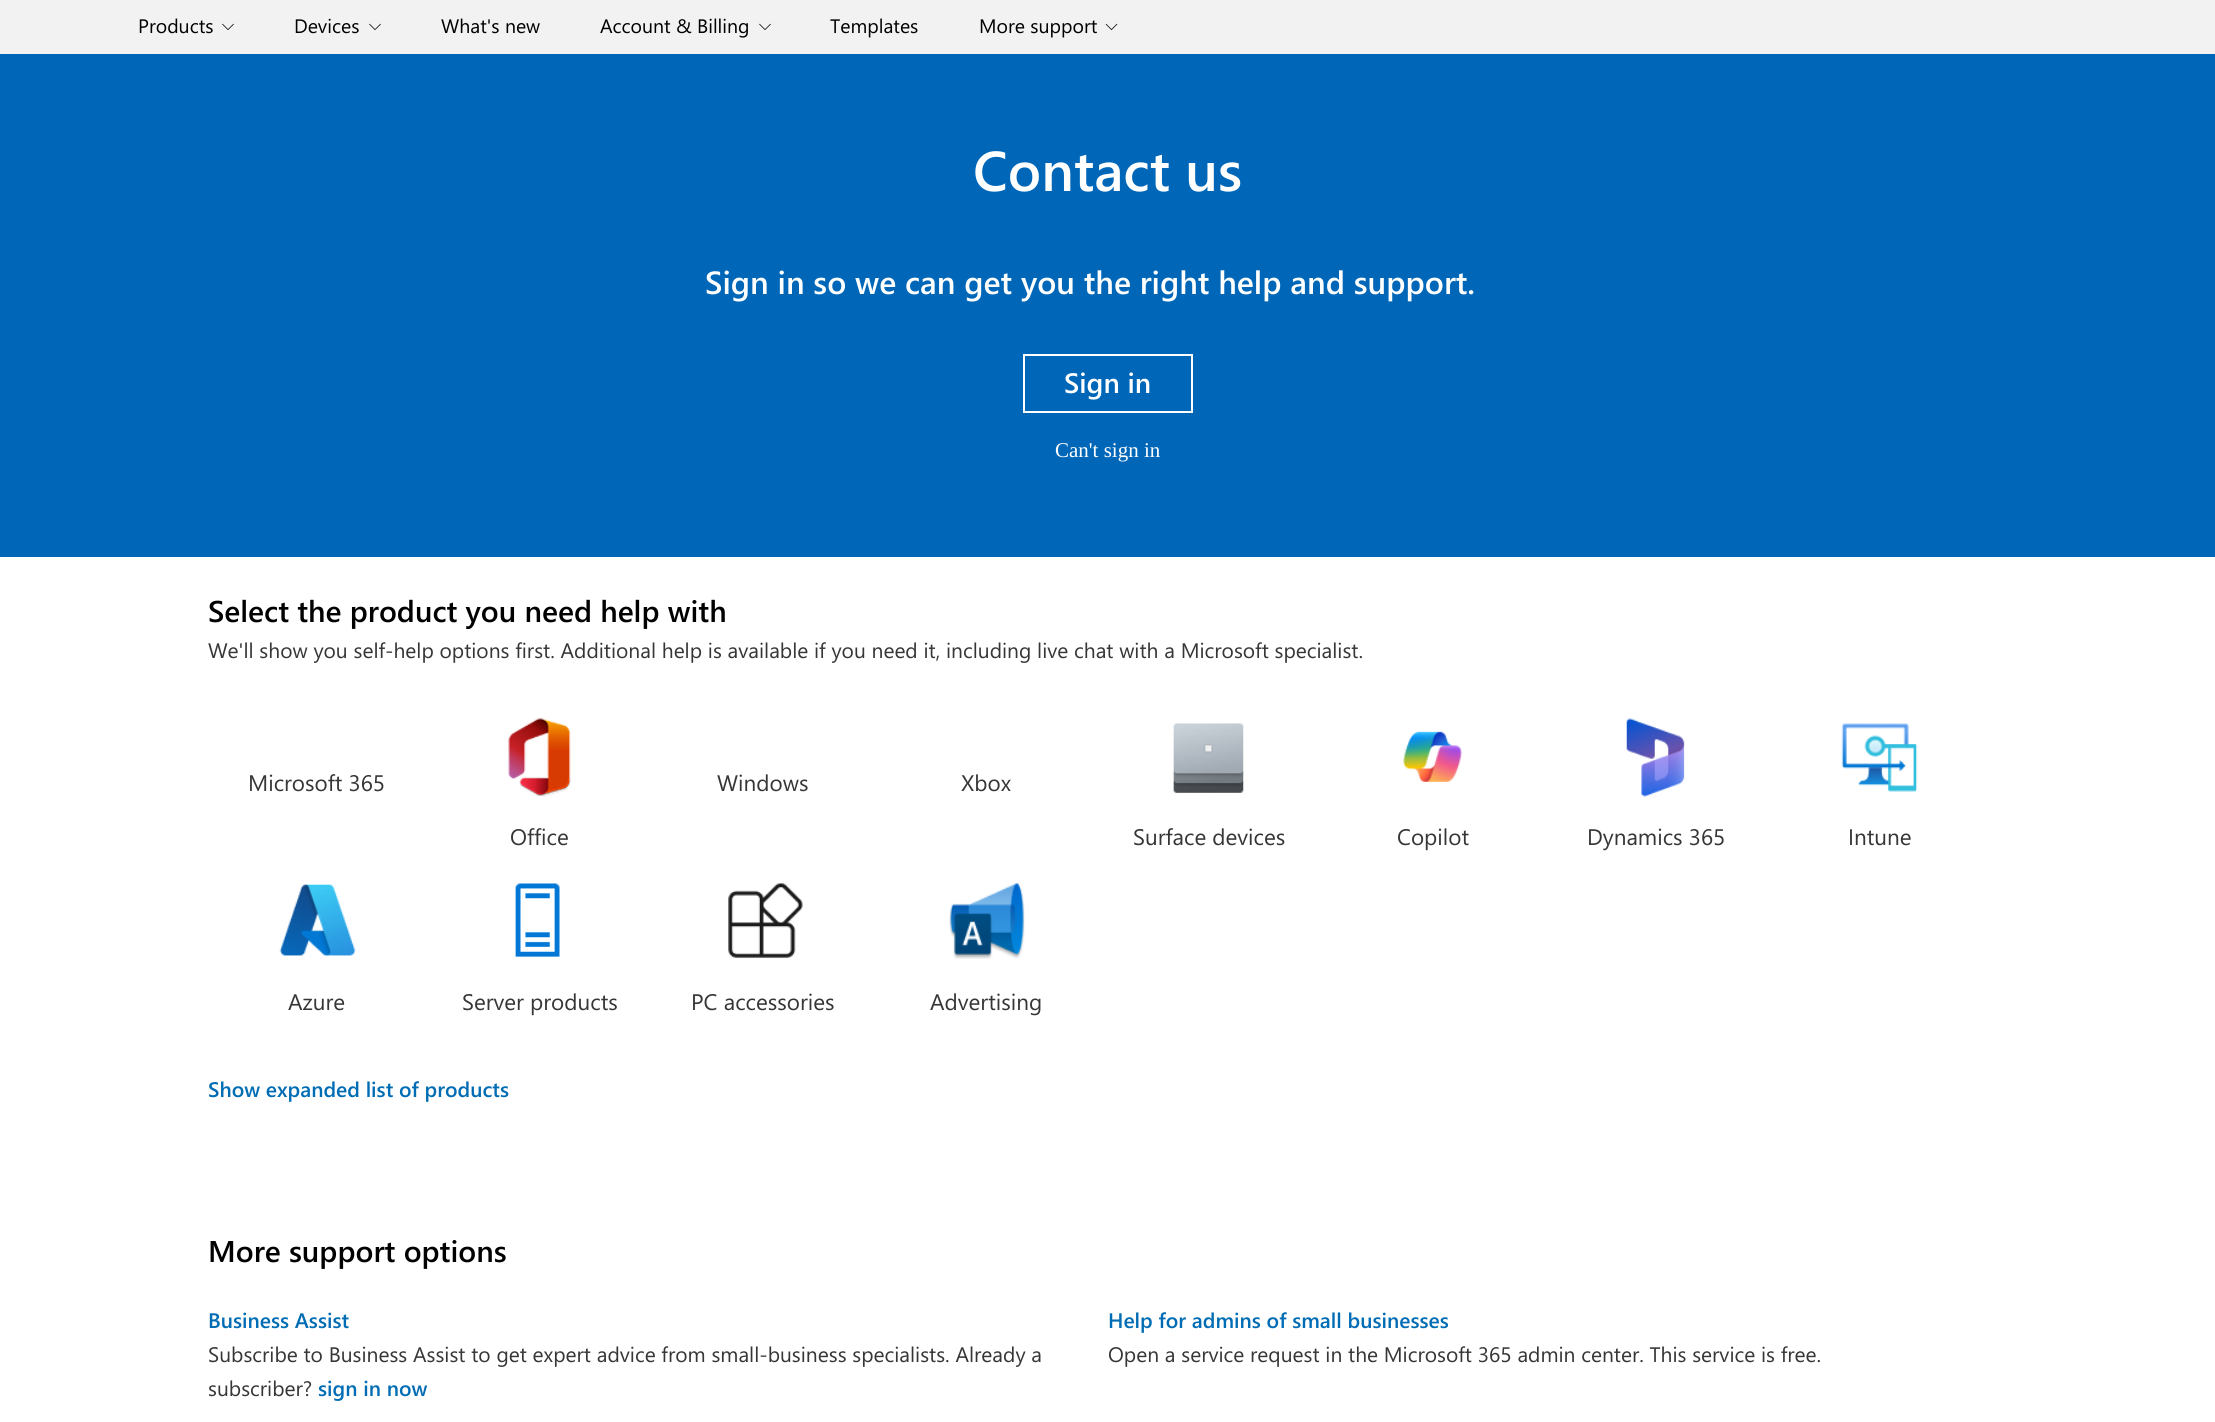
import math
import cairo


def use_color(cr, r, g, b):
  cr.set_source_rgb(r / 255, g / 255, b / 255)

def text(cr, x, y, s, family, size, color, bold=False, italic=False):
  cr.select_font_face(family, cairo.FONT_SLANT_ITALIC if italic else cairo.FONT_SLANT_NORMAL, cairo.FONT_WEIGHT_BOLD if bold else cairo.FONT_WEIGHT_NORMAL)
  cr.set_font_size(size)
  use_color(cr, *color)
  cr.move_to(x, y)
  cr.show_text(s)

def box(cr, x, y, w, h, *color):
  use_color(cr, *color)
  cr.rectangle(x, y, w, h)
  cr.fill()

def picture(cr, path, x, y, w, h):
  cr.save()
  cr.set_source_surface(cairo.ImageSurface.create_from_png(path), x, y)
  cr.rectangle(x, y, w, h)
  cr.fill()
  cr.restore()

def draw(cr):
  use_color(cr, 255, 255, 255)
  cr.paint()
  box(cr, 0, 0, 2215, 54, 242, 242, 242)
  picture(cr, "img_01.png", 222, 23, 12, 7)
  picture(cr, "img_01.png", 369, 23, 12, 7)
  picture(cr, "img_01.png", 759, 23, 12, 7)
  picture(cr, "img_02.png", 1105, 23, 13, 8)
  box(cr, 0, 54, 2215, 503, 0, 103, 184)
  cr.rectangle(1024, 355, 168, 57)
  use_color(cr, 255, 255, 255)
  cr.stroke()
  picture(cr, "img_03.png", 508, 718, 63, 79)
  picture(cr, "img_04.png", 1173, 723, 71, 70)
  picture(cr, "img_05.png", 1403, 731, 59, 52)
  picture(cr, "img_06.png", 1626, 718, 59, 79)
  picture(cr, "img_07.png", 1841, 723, 77, 69)
  picture(cr, "img_08.png", 279, 884, 77, 72)
  picture(cr, "img_09.png", 515, 883, 45, 74)
  picture(cr, "img_10.png", 728, 883, 75, 75)
  picture(cr, "img_11.png", 949, 883, 76, 76)
  text(cr, 138, 33, "Products", "Segoe UI", 19.5, (0, 0, 0))
  text(cr, 294, 33, "Devices", "Segoe UI", 19.5, (0, 0, 0))
  text(cr, 441, 33, "What's new", "Segoe UI", 19.5, (0, 0, 0))
  text(cr, 600, 33, "Account & Billing", "Segoe UI", 19.5, (0, 0, 0))
  text(cr, 830, 33, "Templates", "Segoe UI", 19.5, (0, 0, 0))
  text(cr, 979, 33, "More support", "Segoe UI", 19.5, (0, 0, 0))
  text(cr, 973, 191, "Contact us", "Segoe UI SemiBold", 56, (255, 255, 255))
  text(cr, 705, 294, "Sign in so we can get you the right help and support.", "Segoe UI SemiBold", 32, (255, 255, 255))
  text(cr, 1064, 393, "Sign in", "Segoe UI SemiBold", 28, (255, 255, 255))
  text(cr, 1055, 457, "Can't sign in", "Liberation Serif", 21, (255, 255, 255))
  text(cr, 208, 622, "Select the product you need help with", "Segoe UI SemiBold", 30, (0, 0, 0))
  text(cr, 208, 658, "We'll show you self-help options first. Additional help is available if you need it, including live chat with a Microsoft specialist.", "Segoe UI", 21, (54, 54, 54))
  text(cr, 248, 791, "Microsoft 365", "Segoe UI", 22.5, (54, 54, 54))
  text(cr, 717, 791, "Windows", "Segoe UI", 22.5, (54, 54, 54))
  text(cr, 961, 791, "Xbox", "Segoe UI", 22.5, (54, 54, 54))
  text(cr, 510, 845, "Office", "Segoe UI", 22.5, (54, 54, 54))
  text(cr, 1133, 845, "Surface devices", "Segoe UI", 22.5, (54, 54, 54))
  text(cr, 1397, 845, "Copilot", "Segoe UI", 22.5, (54, 54, 54))
  text(cr, 1587, 845, "Dynamics 365", "Segoe UI", 22.5, (54, 54, 54))
  text(cr, 1848, 845, "Intune", "Segoe UI", 22.5, (54, 54, 54))
  text(cr, 288, 1010, "Azure", "Segoe UI", 22.5, (54, 54, 54))
  text(cr, 462, 1010, "Server products", "Segoe UI", 22.5, (54, 54, 54))
  text(cr, 691, 1010, "PC accessories", "Segoe UI", 22.5, (54, 54, 54))
  text(cr, 930, 1010, "Advertising", "Segoe UI", 22.5, (54, 54, 54))
  text(cr, 208, 1097, "Show expanded list of products", "Segoe UI SemiBold", 21, (0, 108, 180))
  text(cr, 208, 1262, "More support options", "Segoe UI SemiBold", 30, (0, 0, 0))
  text(cr, 208, 1328, "Business Assist", "Segoe UI SemiBold", 21, (0, 108, 180))
  text(cr, 208, 1362, "Subscribe to Business Assist to get expert advice from small-business specialists. Already a", "Segoe UI", 21, (54, 54, 54))
  text(cr, 208, 1396, "subscriber?", "Segoe UI", 21, (54, 54, 54))
  text(cr, 318, 1396, "sign in now", "Segoe UI SemiBold", 21, (0, 108, 180))
  text(cr, 1108, 1328, "Help for admins of small businesses", "Segoe UI SemiBold", 21, (0, 108, 180))
  text(cr, 1108, 1362, "Open a service request in the Microsoft 365 admin center. This service is free.", "Segoe UI", 21, (54, 54, 54))


surface = cairo.ImageSurface(cairo.FORMAT_RGB24, 2215, 1422)
cr = cairo.Context(surface)
options = cairo.FontOptions()
options.set_hint_metrics(cairo.HINT_METRICS_OFF)
options.set_hint_style(cairo.HINT_STYLE_NONE)
cr.set_font_options(options)
cr.set_miter_limit(4)
draw(cr)
surface.write_to_png("out.png")
